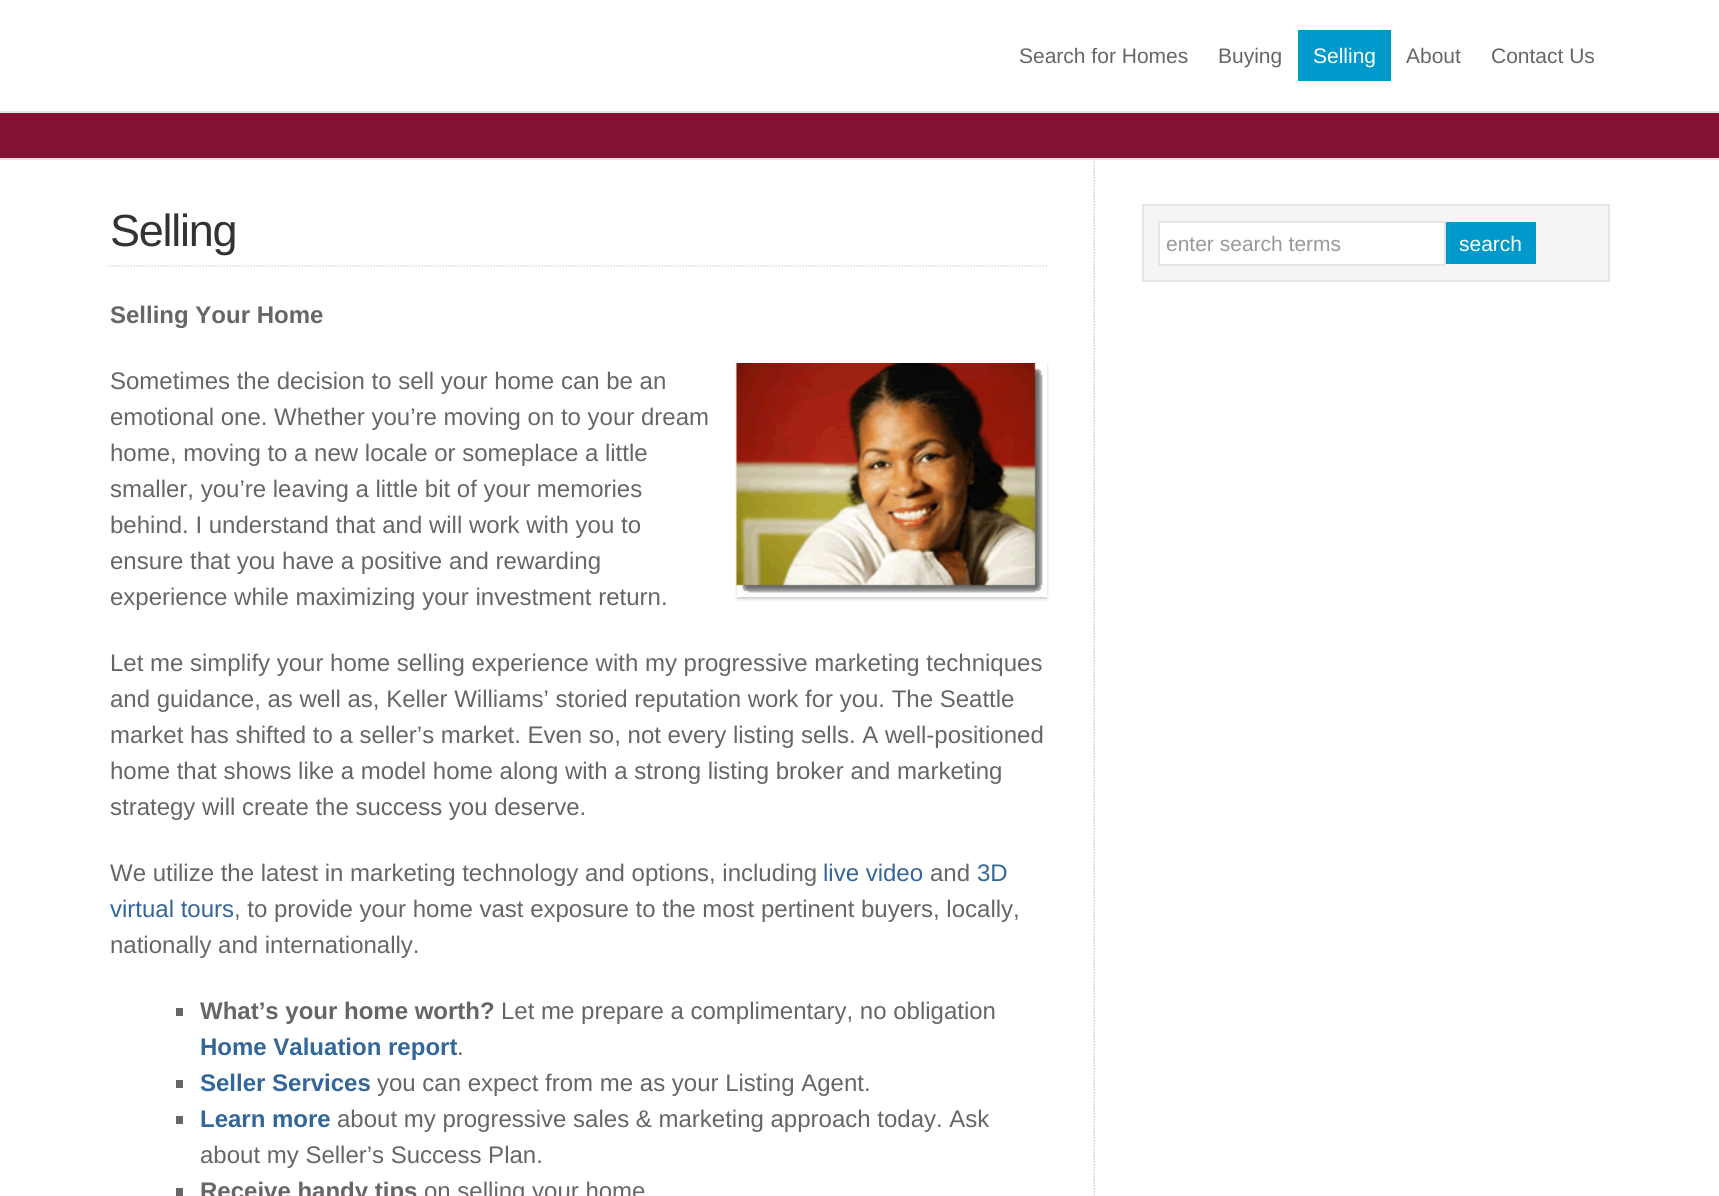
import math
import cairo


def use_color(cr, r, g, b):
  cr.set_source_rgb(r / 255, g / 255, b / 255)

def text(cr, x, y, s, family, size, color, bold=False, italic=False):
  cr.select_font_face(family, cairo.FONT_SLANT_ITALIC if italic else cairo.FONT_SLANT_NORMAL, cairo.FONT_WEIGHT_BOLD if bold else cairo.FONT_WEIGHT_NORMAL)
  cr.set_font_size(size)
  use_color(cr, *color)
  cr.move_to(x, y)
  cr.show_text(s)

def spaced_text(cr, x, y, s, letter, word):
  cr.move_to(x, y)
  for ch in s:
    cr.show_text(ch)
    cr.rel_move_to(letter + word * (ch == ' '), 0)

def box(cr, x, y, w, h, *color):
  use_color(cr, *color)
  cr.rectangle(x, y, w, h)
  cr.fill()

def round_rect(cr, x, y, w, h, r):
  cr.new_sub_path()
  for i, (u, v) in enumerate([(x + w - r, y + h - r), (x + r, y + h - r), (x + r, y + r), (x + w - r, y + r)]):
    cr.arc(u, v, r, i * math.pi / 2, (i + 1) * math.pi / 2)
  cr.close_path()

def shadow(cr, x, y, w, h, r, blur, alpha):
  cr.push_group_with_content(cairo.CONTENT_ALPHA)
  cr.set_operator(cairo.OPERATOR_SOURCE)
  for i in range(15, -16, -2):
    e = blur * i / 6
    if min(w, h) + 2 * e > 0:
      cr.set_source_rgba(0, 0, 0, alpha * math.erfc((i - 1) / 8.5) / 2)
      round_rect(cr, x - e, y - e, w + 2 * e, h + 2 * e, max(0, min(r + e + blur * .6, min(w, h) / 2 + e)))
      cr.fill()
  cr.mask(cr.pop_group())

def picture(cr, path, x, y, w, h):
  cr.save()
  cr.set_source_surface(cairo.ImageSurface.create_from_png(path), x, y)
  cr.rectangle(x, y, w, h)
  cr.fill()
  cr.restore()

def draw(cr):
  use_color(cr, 255, 255, 255)
  cr.paint()
  box(cr, 1298, 30, 93, 51, 0, 153, 204)
  box(cr, 0, 113, 1719, 45, 132, 17, 49)
  box(cr, 0, 111, 1719, 2, 229, 229, 229)
  box(cr, 0, 158, 1719, 2, 229, 229, 229)
  picture(cr, "img_01.png", 1093, 159, 2, 1037)
  cr.new_path()
  cr.move_to(109.5, 266)
  cr.line_to(1047, 266)
  use_color(cr, 221, 221, 221)
  cr.set_line_width(1.5)
  cr.set_dash([1.5, 1.5])
  cr.stroke()
  cr.save()
  cr.set_fill_rule(cairo.FILL_RULE_EVEN_ODD)
  cr.new_path()
  cr.move_to(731, 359)
  cr.line_to(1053, 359)
  cr.line_to(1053, 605)
  cr.line_to(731, 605)
  cr.close_path()
  cr.move_to(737, 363)
  cr.line_to(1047, 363)
  cr.line_to(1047, 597)
  cr.line_to(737, 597)
  cr.close_path()
  cr.clip()
  use_color(cr, 0, 0, 0)
  shadow(cr, 737, 365, 310, 234, 0, 1.5, 0.2)
  cr.restore()
  picture(cr, "img_02.png", 736, 363, 307, 230)
  box(cr, 176, 1008, 7, 8, 102, 102, 102)
  box(cr, 176, 1080, 7, 8, 102, 102, 102)
  box(cr, 176, 1116, 7, 8, 102, 102, 102)
  box(cr, 176, 1188, 7, 8, 102, 102, 102)
  use_color(cr, 245, 245, 245)
  cr.rectangle(1143, 205, 466, 76)
  cr.fill_preserve()
  use_color(cr, 229, 229, 229)
  cr.set_line_width(2)
  cr.set_dash([])
  cr.stroke()
  use_color(cr, 255, 255, 255)
  cr.rectangle(1159, 222, 286, 43)
  cr.fill_preserve()
  use_color(cr, 229, 229, 229)
  cr.stroke()
  box(cr, 1446, 222, 90, 42, 0, 153, 204)
  text(cr, 1019, 63, "Search for Homes", "Liberation Sans", 21, (102, 102, 102))
  text(cr, 1218, 63, "Buying", "Liberation Sans", 21, (102, 102, 102))
  text(cr, 1313, 63, "Selling", "Liberation Sans", 21, (255, 255, 255))
  text(cr, 1406, 63, "About", "Liberation Sans", 21, (102, 102, 102))
  text(cr, 1491, 63, "Contact Us", "Liberation Sans", 21, (102, 102, 102))
  cr.set_font_size(45)
  use_color(cr, 51, 51, 51)
  spaced_text(cr, 110, 246, "Selling", -1.25, 0)
  text(cr, 110, 323, "Selling Your Home", "Liberation Sans", 24, (102, 102, 102), bold=True)
  text(cr, 110, 389, "Sometimes the decision to sell your home can be an", "Liberation Sans", 24, (102, 102, 102))
  text(cr, 110, 425, "emotional one. Whether you’re moving on to your dream", "Liberation Sans", 24, (102, 102, 102))
  text(cr, 110, 461, "home, moving to a new locale or someplace a little", "Liberation Sans", 24, (102, 102, 102))
  text(cr, 110, 497, "smaller, you’re leaving a little bit of your memories", "Liberation Sans", 24, (102, 102, 102))
  text(cr, 110, 533, "behind. I understand that and will work with you to", "Liberation Sans", 24, (102, 102, 102))
  text(cr, 110, 569, "ensure that you have a positive and rewarding", "Liberation Sans", 24, (102, 102, 102))
  text(cr, 110, 605, "experience while maximizing your investment return.", "Liberation Sans", 24, (102, 102, 102))
  text(cr, 110, 671, "Let me simplify your home selling experience with my progressive marketing techniques", "Liberation Sans", 24, (102, 102, 102))
  text(cr, 110, 707, "and guidance, as well as, Keller Williams’ storied reputation work for you. The Seattle", "Liberation Sans", 24, (102, 102, 102))
  text(cr, 110, 743, "market has shifted to a seller’s market. Even so, not every listing sells. A well-positioned", "Liberation Sans", 24, (102, 102, 102))
  text(cr, 110, 779, "home that shows like a model home along with a strong listing broker and marketing", "Liberation Sans", 24, (102, 102, 102))
  text(cr, 110, 815, "strategy will create the success you deserve.", "Liberation Sans", 24, (102, 102, 102))
  text(cr, 110, 881, "We utilize the latest in marketing technology and options, including", "Liberation Sans", 24, (102, 102, 102))
  text(cr, 823, 881, "live video", "Liberation Sans", 24, (51, 102, 153))
  text(cr, 930, 881, "and", "Liberation Sans", 24, (102, 102, 102))
  text(cr, 977, 881, "3D", "Liberation Sans", 24, (51, 102, 153))
  text(cr, 110, 917, "virtual tours", "Liberation Sans", 24, (51, 102, 153))
  text(cr, 234, 917, ", to provide your home vast exposure to the most pertinent buyers, locally,", "Liberation Sans", 24, (102, 102, 102))
  text(cr, 110, 953, "nationally and internationally.", "Liberation Sans", 24, (102, 102, 102))
  text(cr, 200, 1019, "What’s your home worth?", "Liberation Sans", 24, (102, 102, 102), bold=True)
  text(cr, 501, 1019, "Let me prepare a complimentary, no obligation", "Liberation Sans", 24, (102, 102, 102))
  text(cr, 200, 1055, "Home Valuation report", "Liberation Sans", 24, (51, 102, 153), bold=True)
  text(cr, 457, 1055, ".", "Liberation Sans", 24, (102, 102, 102))
  text(cr, 200, 1091, "Seller Services", "Liberation Sans", 24, (51, 102, 153), bold=True)
  text(cr, 377, 1091, "you can expect from me as your Listing Agent.", "Liberation Sans", 24, (102, 102, 102))
  text(cr, 200, 1127, "Learn more", "Liberation Sans", 24, (51, 102, 153), bold=True)
  text(cr, 337, 1127, "about my progressive sales & marketing approach today. Ask", "Liberation Sans", 24, (102, 102, 102))
  text(cr, 200, 1163, "about my Seller’s Success Plan.", "Liberation Sans", 24, (102, 102, 102))
  text(cr, 200, 1199, "Receive handy tips", "Liberation Sans", 24, (102, 102, 102), bold=True)
  text(cr, 424, 1199, "on selling your home", "Liberation Sans", 24, (102, 102, 102))
  text(cr, 1166, 251, "enter search terms", "Liberation Sans", 21, (153, 153, 153))
  text(cr, 1459, 251, "search", "Liberation Sans", 21, (255, 255, 255))


surface = cairo.ImageSurface(cairo.FORMAT_RGB24, 1719, 1196)
cr = cairo.Context(surface)
options = cairo.FontOptions()
options.set_hint_metrics(cairo.HINT_METRICS_OFF)
options.set_hint_style(cairo.HINT_STYLE_NONE)
cr.set_font_options(options)
cr.set_miter_limit(4)
draw(cr)
surface.write_to_png("out.png")
